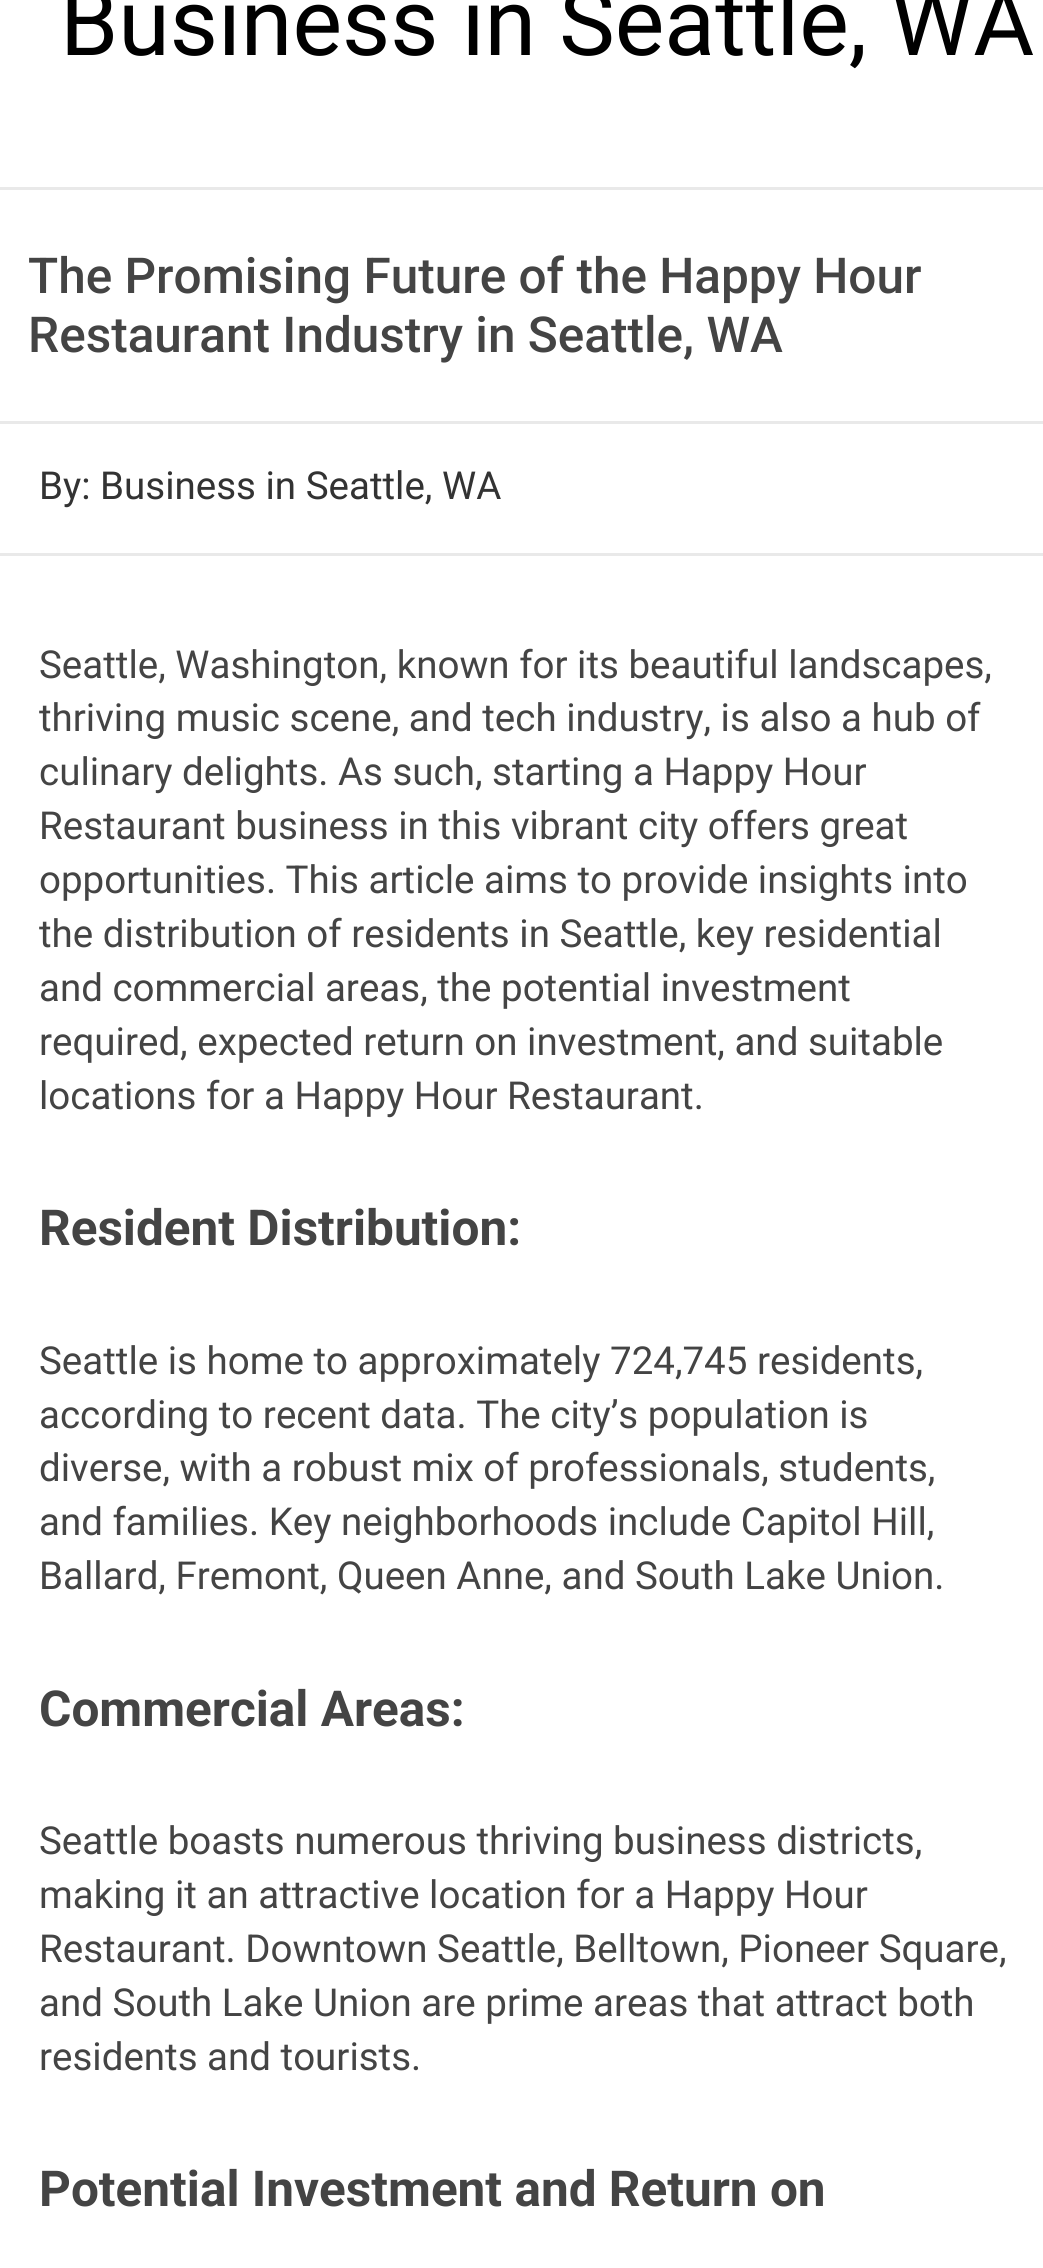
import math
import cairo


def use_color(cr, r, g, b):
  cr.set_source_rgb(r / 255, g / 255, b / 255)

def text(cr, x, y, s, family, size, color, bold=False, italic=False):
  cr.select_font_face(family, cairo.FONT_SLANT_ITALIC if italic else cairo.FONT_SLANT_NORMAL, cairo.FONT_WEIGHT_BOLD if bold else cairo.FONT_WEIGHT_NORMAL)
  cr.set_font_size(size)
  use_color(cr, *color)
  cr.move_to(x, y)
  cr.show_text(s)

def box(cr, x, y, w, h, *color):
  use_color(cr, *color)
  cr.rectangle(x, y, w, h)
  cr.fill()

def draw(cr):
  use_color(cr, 255, 255, 255)
  cr.paint()
  box(cr, 0, 187, 1043, 3, 233, 233, 233)
  box(cr, 0, 421, 1043, 3, 233, 233, 233)
  box(cr, 0, 553, 1043, 3, 233, 233, 233)
  text(cr, 60, 55, "Business in Seattle, WA", "Roboto", 93.5, (0, 0, 0))
  text(cr, 28, 293, "The Promising Future of the Happy Hour", "Roboto Medium", 49.5, (68, 68, 68))
  text(cr, 28, 352, "Restaurant Industry in Seattle, WA", "Roboto Medium", 49.5, (68, 68, 68))
  text(cr, 39, 499, "By: Business in Seattle, WA", "Roboto", 38.5, (51, 51, 51))
  text(cr, 39, 678, "Seattle, Washington, known for its beautiful landscapes,", "Roboto", 38.5, (68, 68, 68))
  text(cr, 39, 731, "thriving music scene, and tech industry, is also a hub of", "Roboto", 38.5, (68, 68, 68))
  text(cr, 39, 785, "culinary delights. As such, starting a Happy Hour", "Roboto", 38.5, (68, 68, 68))
  text(cr, 39, 839, "Restaurant business in this vibrant city offers great", "Roboto", 38.5, (68, 68, 68))
  text(cr, 39, 893, "opportunities. This article aims to provide insights into", "Roboto", 38.5, (68, 68, 68))
  text(cr, 39, 947, "the distribution of residents in Seattle, key residential", "Roboto", 38.5, (68, 68, 68))
  text(cr, 39, 1001, "and commercial areas, the potential investment", "Roboto", 38.5, (68, 68, 68))
  text(cr, 39, 1055, "required, expected return on investment, and suitable", "Roboto", 38.5, (68, 68, 68))
  text(cr, 39, 1109, "locations for a Happy Hour Restaurant.", "Roboto", 38.5, (68, 68, 68))
  text(cr, 39, 1245, "Resident Distribution:", "Roboto", 49.5, (68, 68, 68), bold=True)
  text(cr, 39, 1374, "Seattle is home to approximately 724,745 residents,", "Roboto", 38.5, (68, 68, 68))
  text(cr, 39, 1428, "according to recent data. The city’s population is", "Roboto", 38.5, (68, 68, 68))
  text(cr, 39, 1481, "diverse, with a robust mix of professionals, students,", "Roboto", 38.5, (68, 68, 68))
  text(cr, 39, 1535, "and families. Key neighborhoods include Capitol Hill,", "Roboto", 38.5, (68, 68, 68))
  text(cr, 39, 1589, "Ballard, Fremont, Queen Anne, and South Lake Union.", "Roboto", 38.5, (68, 68, 68))
  text(cr, 39, 1726, "Commercial Areas:", "Roboto", 49.5, (68, 68, 68), bold=True)
  text(cr, 39, 1854, "Seattle boasts numerous thriving business districts,", "Roboto", 38.5, (68, 68, 68))
  text(cr, 39, 1908, "making it an attractive location for a Happy Hour", "Roboto", 38.5, (68, 68, 68))
  text(cr, 39, 1962, "Restaurant. Downtown Seattle, Belltown, Pioneer Square,", "Roboto", 38.5, (68, 68, 68))
  text(cr, 39, 2016, "and South Lake Union are prime areas that attract both", "Roboto", 38.5, (68, 68, 68))
  text(cr, 39, 2070, "residents and tourists.", "Roboto", 38.5, (68, 68, 68))
  text(cr, 39, 2206, "Potential Investment and Return on", "Roboto", 49.5, (68, 68, 68), bold=True)


surface = cairo.ImageSurface(cairo.FORMAT_RGB24, 1043, 2268)
cr = cairo.Context(surface)
options = cairo.FontOptions()
options.set_hint_metrics(cairo.HINT_METRICS_OFF)
options.set_hint_style(cairo.HINT_STYLE_NONE)
cr.set_font_options(options)
cr.set_miter_limit(4)
draw(cr)
surface.write_to_png("out.png")
